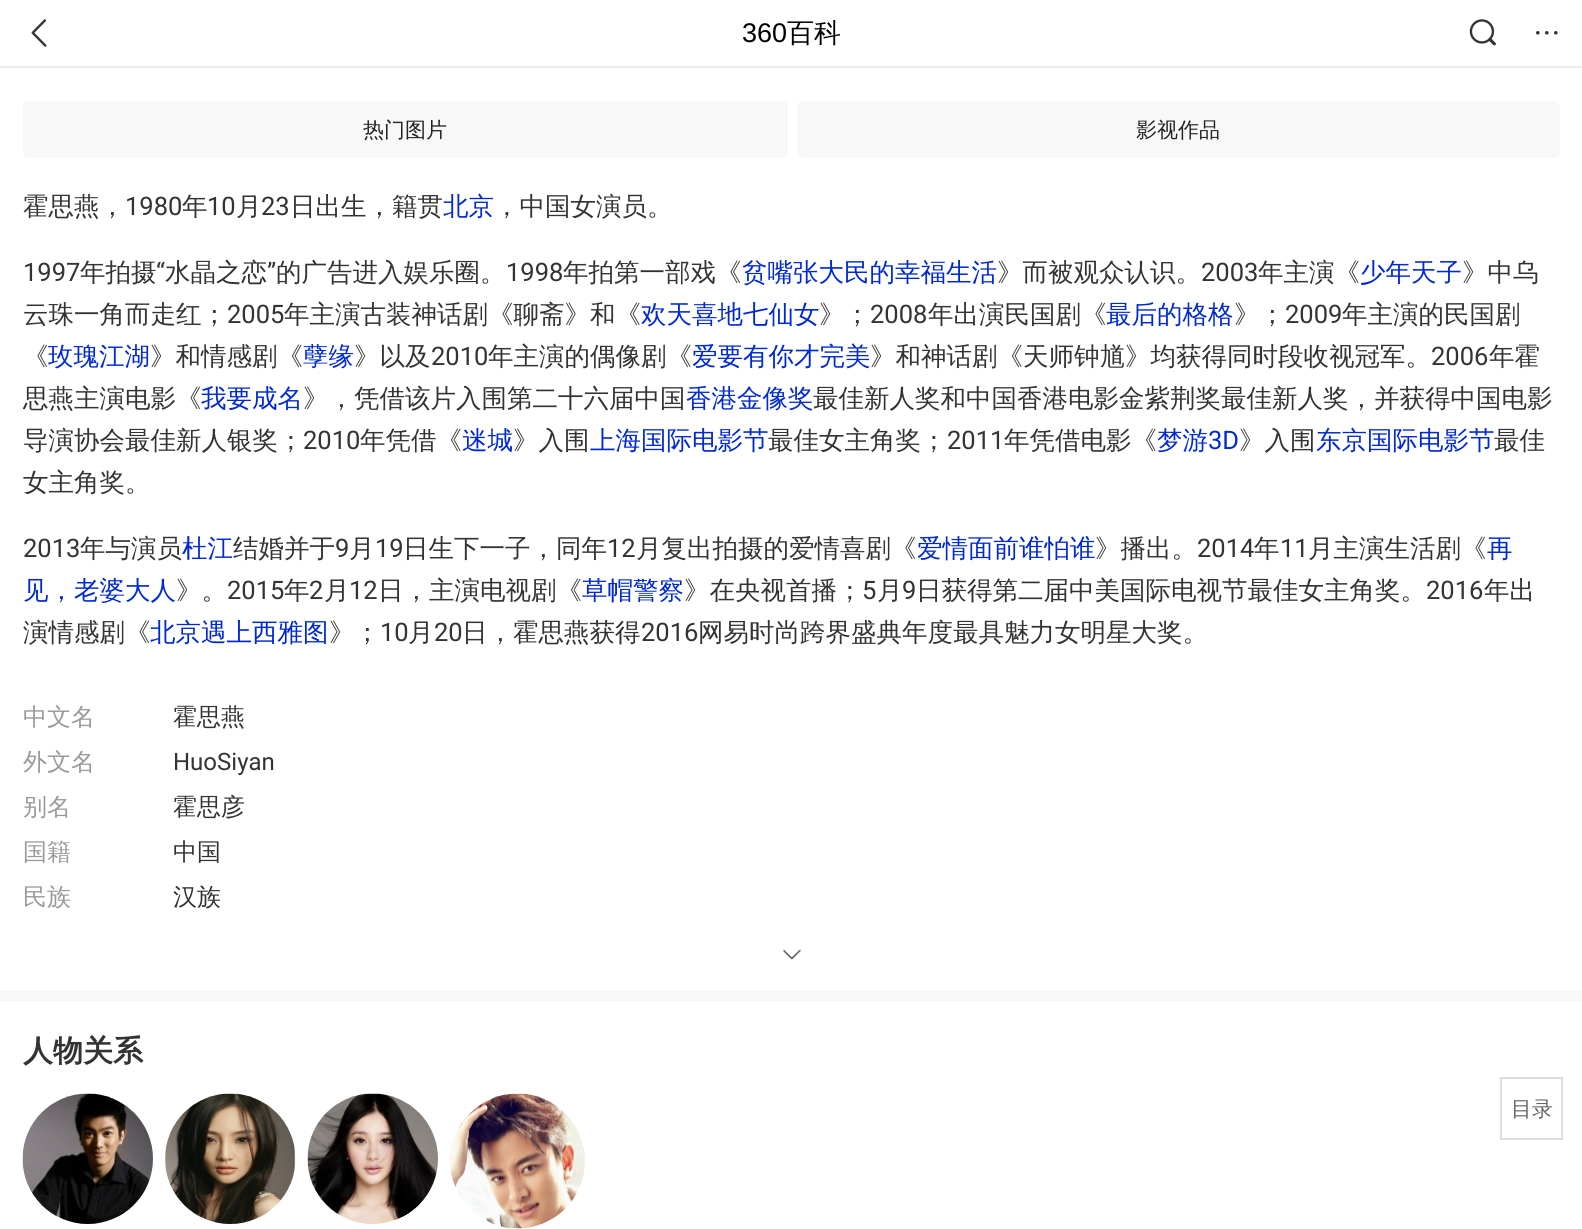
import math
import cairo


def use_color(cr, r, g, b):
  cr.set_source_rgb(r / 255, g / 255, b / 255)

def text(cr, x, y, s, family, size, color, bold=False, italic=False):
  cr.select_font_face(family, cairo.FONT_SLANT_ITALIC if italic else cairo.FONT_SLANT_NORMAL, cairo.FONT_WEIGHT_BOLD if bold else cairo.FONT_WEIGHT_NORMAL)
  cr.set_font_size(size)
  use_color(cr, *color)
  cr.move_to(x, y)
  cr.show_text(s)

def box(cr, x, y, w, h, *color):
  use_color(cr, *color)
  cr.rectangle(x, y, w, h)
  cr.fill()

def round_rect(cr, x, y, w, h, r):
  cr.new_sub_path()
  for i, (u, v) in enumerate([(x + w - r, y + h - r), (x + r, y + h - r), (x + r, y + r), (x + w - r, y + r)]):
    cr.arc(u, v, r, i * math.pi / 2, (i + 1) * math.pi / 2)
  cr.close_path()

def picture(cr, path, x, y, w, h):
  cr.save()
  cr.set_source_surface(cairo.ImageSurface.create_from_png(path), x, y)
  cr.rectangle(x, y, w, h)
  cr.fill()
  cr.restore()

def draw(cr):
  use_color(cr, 255, 255, 255)
  cr.paint()
  box(cr, 0, 66, 1582, 2, 237, 237, 237)
  picture(cr, "img_01.png", 31, 19, 16, 28)
  picture(cr, "img_02.png", 1469, 19, 27, 27)
  use_color(cr, 51, 51, 51)
  cr.arc(1537.8, 32.8, 1.8, 0, 2 * math.pi)
  cr.fill()
  cr.arc(1546.8, 32.8, 1.8, 0, 2 * math.pi)
  cr.fill()
  cr.arc(1555.8, 32.8, 1.8, 0, 2 * math.pi)
  cr.fill()
  cr.rectangle(1501, 1078, 61, 61)
  use_color(cr, 221, 221, 221)
  cr.stroke()
  use_color(cr, 248, 248, 248)
  round_rect(cr, 23, 101, 765, 57, 6)
  cr.fill()
  round_rect(cr, 797, 101, 763, 57, 6)
  cr.fill()
  box(cr, 0, 990, 1582, 12, 248, 248, 248)
  picture(cr, "img_03.png", 783, 949, 18, 11)
  picture(cr, "img_04.png", 22, 1093, 131, 131)
  picture(cr, "img_05.png", 165, 1093, 131, 131)
  picture(cr, "img_06.png", 307, 1093, 131, 131)
  picture(cr, "img_07.png", 450, 1093, 135, 136)
  text(cr, 742, 42, "360", "Liberation Sans", 27, (0, 0, 0))
  text(cr, 787, 42, "百科", "WenQuanYi Zen Hei Medium", 27, (0, 0, 0))
  text(cr, 1511, 1116, "目录", "WenQuanYi Zen Hei Medium", 21, (102, 102, 102))
  text(cr, 363, 137, "热门图片", "WenQuanYi Zen Hei Medium", 21, (34, 34, 34))
  text(cr, 1136, 137, "影视作品", "WenQuanYi Zen Hei Medium", 21, (34, 34, 34))
  text(cr, 23, 215, "霍思燕，", "WenQuanYi Zen Hei Medium", 25.5, (51, 51, 51))
  text(cr, 125, 215, "1980", "Roboto", 25.5, (51, 51, 51))
  text(cr, 182, 215, "年", "WenQuanYi Zen Hei Medium", 25.5, (51, 51, 51))
  text(cr, 207, 215, "10", "Roboto", 25.5, (51, 51, 51))
  text(cr, 236, 215, "月", "WenQuanYi Zen Hei Medium", 25.5, (51, 51, 51))
  text(cr, 261, 215, "23", "Roboto", 25.5, (51, 51, 51))
  text(cr, 290, 215, "日出生，籍贯", "WenQuanYi Zen Hei Medium", 25.5, (51, 51, 51))
  text(cr, 443, 215, "北京", "WenQuanYi Zen Hei Medium", 25.5, (0, 42, 208))
  text(cr, 494, 215, "，中国女演员。", "WenQuanYi Zen Hei Medium", 25.5, (51, 51, 51))
  text(cr, 23, 281, "1997", "Roboto", 25.5, (51, 51, 51))
  text(cr, 80, 281, "年拍摄", "WenQuanYi Zen Hei Medium", 25.5, (51, 51, 51))
  text(cr, 156, 281, "“", "Roboto", 25.5, (51, 51, 51))
  text(cr, 165, 281, "水晶之恋", "WenQuanYi Zen Hei Medium", 25.5, (51, 51, 51))
  text(cr, 267, 281, "”", "Roboto", 25.5, (51, 51, 51))
  text(cr, 276, 281, "的广告进入娱乐圈。", "WenQuanYi Zen Hei Medium", 25.5, (51, 51, 51))
  text(cr, 506, 281, "1998", "Roboto", 25.5, (51, 51, 51))
  text(cr, 563, 281, "年拍第一部戏《", "WenQuanYi Zen Hei Medium", 25.5, (51, 51, 51))
  text(cr, 742, 281, "贫嘴张大民的幸福生活", "WenQuanYi Zen Hei Medium", 25.5, (0, 42, 208))
  text(cr, 997, 281, "》而被观众认识。", "WenQuanYi Zen Hei Medium", 25.5, (51, 51, 51))
  text(cr, 1201, 281, "2003", "Roboto", 25.5, (51, 51, 51))
  text(cr, 1258, 281, "年主演《", "WenQuanYi Zen Hei Medium", 25.5, (51, 51, 51))
  text(cr, 1360, 281, "少年天子", "WenQuanYi Zen Hei Medium", 25.5, (0, 42, 208))
  text(cr, 1462, 281, "》中乌", "WenQuanYi Zen Hei Medium", 25.5, (51, 51, 51))
  text(cr, 23, 323, "云珠一角而走红；", "WenQuanYi Zen Hei Medium", 25.5, (51, 51, 51))
  text(cr, 227, 323, "2005", "Roboto", 25.5, (51, 51, 51))
  text(cr, 284, 323, "年主演古装神话剧《聊斋》和《", "WenQuanYi Zen Hei Medium", 25.5, (51, 51, 51))
  text(cr, 641, 323, "欢天喜地七仙女", "WenQuanYi Zen Hei Medium", 25.5, (0, 42, 208))
  text(cr, 819, 323, "》；", "WenQuanYi Zen Hei Medium", 25.5, (51, 51, 51))
  text(cr, 870, 323, "2008", "Roboto", 25.5, (51, 51, 51))
  text(cr, 928, 323, "年出演民国剧《", "WenQuanYi Zen Hei Medium", 25.5, (51, 51, 51))
  text(cr, 1106, 323, "最后的格格", "WenQuanYi Zen Hei Medium", 25.5, (0, 42, 208))
  text(cr, 1234, 323, "》；", "WenQuanYi Zen Hei Medium", 25.5, (51, 51, 51))
  text(cr, 1285, 323, "2009", "Roboto", 25.5, (51, 51, 51))
  text(cr, 1342, 323, "年主演的民国剧", "WenQuanYi Zen Hei Medium", 25.5, (51, 51, 51))
  text(cr, 23, 365, "《", "WenQuanYi Zen Hei Medium", 25.5, (51, 51, 51))
  text(cr, 48, 365, "玫瑰江湖", "WenQuanYi Zen Hei Medium", 25.5, (0, 42, 208))
  text(cr, 150, 365, "》和情感剧《", "WenQuanYi Zen Hei Medium", 25.5, (51, 51, 51))
  text(cr, 303, 365, "孽缘", "WenQuanYi Zen Hei Medium", 25.5, (0, 42, 208))
  text(cr, 354, 365, "》以及", "WenQuanYi Zen Hei Medium", 25.5, (51, 51, 51))
  text(cr, 431, 365, "2010", "Roboto", 25.5, (51, 51, 51))
  text(cr, 488, 365, "年主演的偶像剧《", "WenQuanYi Zen Hei Medium", 25.5, (51, 51, 51))
  text(cr, 692, 365, "爱要有你才完美", "WenQuanYi Zen Hei Medium", 25.5, (0, 42, 208))
  text(cr, 870, 365, "》和神话剧《天师钟馗》均获得同时段收视冠军。", "WenQuanYi Zen Hei Medium", 25.5, (51, 51, 51))
  text(cr, 1431, 365, "2006", "Roboto", 25.5, (51, 51, 51))
  text(cr, 1489, 365, "年霍", "WenQuanYi Zen Hei Medium", 25.5, (51, 51, 51))
  text(cr, 23, 407, "思燕主演电影《", "WenQuanYi Zen Hei Medium", 25.5, (51, 51, 51))
  text(cr, 201, 407, "我要成名", "WenQuanYi Zen Hei Medium", 25.5, (0, 42, 208))
  text(cr, 303, 407, "》，凭借该片入围第二十六届中国", "WenQuanYi Zen Hei Medium", 25.5, (51, 51, 51))
  text(cr, 686, 407, "香港金像奖", "WenQuanYi Zen Hei Medium", 25.5, (0, 42, 208))
  text(cr, 813, 407, "最佳新人奖和中国香港电影金紫荆奖最佳新人奖，并获得中国电影", "WenQuanYi Zen Hei Medium", 25.5, (51, 51, 51))
  text(cr, 23, 449, "导演协会最佳新人银奖；", "WenQuanYi Zen Hei Medium", 25.5, (51, 51, 51))
  text(cr, 303, 449, "2010", "Roboto", 25.5, (51, 51, 51))
  text(cr, 360, 449, "年凭借《", "WenQuanYi Zen Hei Medium", 25.5, (51, 51, 51))
  text(cr, 462, 449, "迷城", "WenQuanYi Zen Hei Medium", 25.5, (0, 42, 208))
  text(cr, 513, 449, "》入围", "WenQuanYi Zen Hei Medium", 25.5, (51, 51, 51))
  text(cr, 590, 449, "上海国际电影节", "WenQuanYi Zen Hei Medium", 25.5, (0, 42, 208))
  text(cr, 768, 449, "最佳女主角奖；", "WenQuanYi Zen Hei Medium", 25.5, (51, 51, 51))
  text(cr, 947, 449, "2011", "Roboto", 25.5, (51, 51, 51))
  text(cr, 1004, 449, "年凭借电影《", "WenQuanYi Zen Hei Medium", 25.5, (51, 51, 51))
  text(cr, 1157, 449, "梦游", "WenQuanYi Zen Hei Medium", 25.5, (0, 42, 208))
  text(cr, 1208, 449, "3D", "Roboto", 25.5, (0, 42, 208))
  text(cr, 1239, 449, "》入围", "WenQuanYi Zen Hei Medium", 25.5, (51, 51, 51))
  text(cr, 1316, 449, "东京国际电影节", "WenQuanYi Zen Hei Medium", 25.5, (0, 42, 208))
  text(cr, 1494, 449, "最佳", "WenQuanYi Zen Hei Medium", 25.5, (51, 51, 51))
  text(cr, 23, 491, "女主角奖。", "WenQuanYi Zen Hei Medium", 25.5, (51, 51, 51))
  text(cr, 23, 557, "2013", "Roboto", 25.5, (51, 51, 51))
  text(cr, 80, 557, "年与演员", "WenQuanYi Zen Hei Medium", 25.5, (51, 51, 51))
  text(cr, 182, 557, "杜江", "WenQuanYi Zen Hei Medium", 25.5, (0, 42, 208))
  text(cr, 233, 557, "结婚并于", "WenQuanYi Zen Hei Medium", 25.5, (51, 51, 51))
  text(cr, 335, 557, "9", "Roboto", 25.5, (51, 51, 51))
  text(cr, 349, 557, "月", "WenQuanYi Zen Hei Medium", 25.5, (51, 51, 51))
  text(cr, 375, 557, "19", "Roboto", 25.5, (51, 51, 51))
  text(cr, 403, 557, "日生下一子，同年", "WenQuanYi Zen Hei Medium", 25.5, (51, 51, 51))
  text(cr, 607, 557, "12", "Roboto", 25.5, (51, 51, 51))
  text(cr, 636, 557, "月复出拍摄的爱情喜剧《", "WenQuanYi Zen Hei Medium", 25.5, (51, 51, 51))
  text(cr, 917, 557, "爱情面前谁怕谁", "WenQuanYi Zen Hei Medium", 25.5, (0, 42, 208))
  text(cr, 1095, 557, "》播出。", "WenQuanYi Zen Hei Medium", 25.5, (51, 51, 51))
  text(cr, 1197, 557, "2014", "Roboto", 25.5, (51, 51, 51))
  text(cr, 1254, 557, "年", "WenQuanYi Zen Hei Medium", 25.5, (51, 51, 51))
  text(cr, 1280, 557, "11", "Roboto", 25.5, (51, 51, 51))
  text(cr, 1308, 557, "月主演生活剧《", "WenQuanYi Zen Hei Medium", 25.5, (51, 51, 51))
  text(cr, 1487, 557, "再", "WenQuanYi Zen Hei Medium", 25.5, (0, 42, 208))
  text(cr, 23, 599, "见，老婆大人", "WenQuanYi Zen Hei Medium", 25.5, (0, 42, 208))
  text(cr, 176, 599, "》。", "WenQuanYi Zen Hei Medium", 25.5, (51, 51, 51))
  text(cr, 227, 599, "2015", "Roboto", 25.5, (51, 51, 51))
  text(cr, 284, 599, "年", "WenQuanYi Zen Hei Medium", 25.5, (51, 51, 51))
  text(cr, 309, 599, "2", "Roboto", 25.5, (51, 51, 51))
  text(cr, 324, 599, "月", "WenQuanYi Zen Hei Medium", 25.5, (51, 51, 51))
  text(cr, 349, 599, "12", "Roboto", 25.5, (51, 51, 51))
  text(cr, 378, 599, "日，主演电视剧《", "WenQuanYi Zen Hei Medium", 25.5, (51, 51, 51))
  text(cr, 582, 599, "草帽警察", "WenQuanYi Zen Hei Medium", 25.5, (0, 42, 208))
  text(cr, 684, 599, "》在央视首播；", "WenQuanYi Zen Hei Medium", 25.5, (51, 51, 51))
  text(cr, 862, 599, "5", "Roboto", 25.5, (51, 51, 51))
  text(cr, 877, 599, "月", "WenQuanYi Zen Hei Medium", 25.5, (51, 51, 51))
  text(cr, 902, 599, "9", "Roboto", 25.5, (51, 51, 51))
  text(cr, 916, 599, "日获得第二届中美国际电视节最佳女主角奖。", "WenQuanYi Zen Hei Medium", 25.5, (51, 51, 51))
  text(cr, 1426, 599, "2016", "Roboto", 25.5, (51, 51, 51))
  text(cr, 1484, 599, "年出", "WenQuanYi Zen Hei Medium", 25.5, (51, 51, 51))
  text(cr, 23, 641, "演情感剧《", "WenQuanYi Zen Hei Medium", 25.5, (51, 51, 51))
  text(cr, 150, 641, "北京遇上西雅图", "WenQuanYi Zen Hei Medium", 25.5, (0, 42, 208))
  text(cr, 329, 641, "》；", "WenQuanYi Zen Hei Medium", 25.5, (51, 51, 51))
  text(cr, 380, 641, "10", "Roboto", 25.5, (51, 51, 51))
  text(cr, 408, 641, "月", "WenQuanYi Zen Hei Medium", 25.5, (51, 51, 51))
  text(cr, 434, 641, "20", "Roboto", 25.5, (51, 51, 51))
  text(cr, 462, 641, "日，霍思燕获得", "WenQuanYi Zen Hei Medium", 25.5, (51, 51, 51))
  text(cr, 641, 641, "2016", "Roboto", 25.5, (51, 51, 51))
  text(cr, 698, 641, "网易时尚跨界盛典年度最具魅力女明星大奖。", "WenQuanYi Zen Hei Medium", 25.5, (51, 51, 51))
  text(cr, 23, 725, "中文名", "WenQuanYi Zen Hei Medium", 24, (153, 153, 153))
  text(cr, 173, 725, "霍思燕", "WenQuanYi Zen Hei Medium", 24, (51, 51, 51))
  text(cr, 23, 770, "外文名", "WenQuanYi Zen Hei Medium", 24, (153, 153, 153))
  text(cr, 173, 770, "HuoSiyan", "Roboto", 24, (51, 51, 51))
  text(cr, 23, 815, "别名", "WenQuanYi Zen Hei Medium", 24, (153, 153, 153))
  text(cr, 173, 815, "霍思彦", "WenQuanYi Zen Hei Medium", 24, (51, 51, 51))
  text(cr, 23, 860, "国籍", "WenQuanYi Zen Hei Medium", 24, (153, 153, 153))
  text(cr, 173, 860, "中国", "WenQuanYi Zen Hei Medium", 24, (51, 51, 51))
  text(cr, 23, 905, "民族", "WenQuanYi Zen Hei Medium", 24, (153, 153, 153))
  text(cr, 173, 905, "汉族", "WenQuanYi Zen Hei Medium", 24, (51, 51, 51))
  text(cr, 23, 1061, "人物关系", "WenQuanYi Zen Hei", 30, (51, 51, 51), bold=True)


surface = cairo.ImageSurface(cairo.FORMAT_RGB24, 1582, 1229)
cr = cairo.Context(surface)
options = cairo.FontOptions()
options.set_hint_metrics(cairo.HINT_METRICS_OFF)
options.set_hint_style(cairo.HINT_STYLE_NONE)
cr.set_font_options(options)
cr.set_miter_limit(4)
draw(cr)
surface.write_to_png("out.png")
